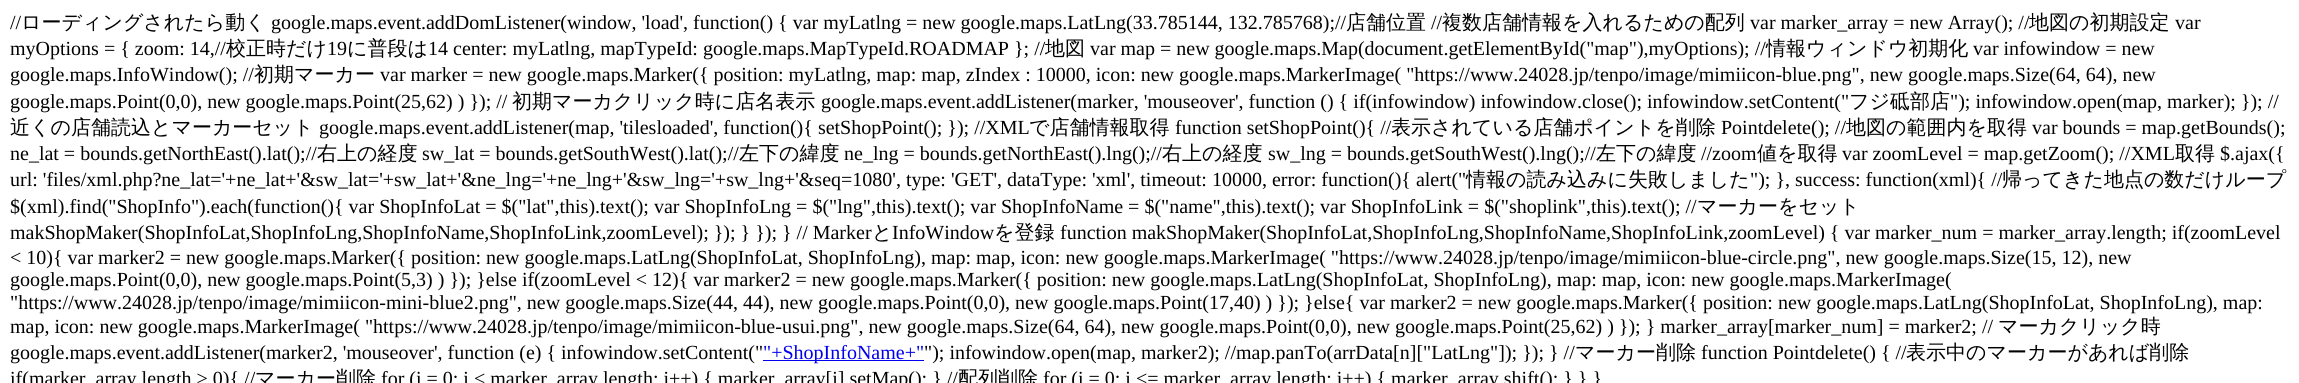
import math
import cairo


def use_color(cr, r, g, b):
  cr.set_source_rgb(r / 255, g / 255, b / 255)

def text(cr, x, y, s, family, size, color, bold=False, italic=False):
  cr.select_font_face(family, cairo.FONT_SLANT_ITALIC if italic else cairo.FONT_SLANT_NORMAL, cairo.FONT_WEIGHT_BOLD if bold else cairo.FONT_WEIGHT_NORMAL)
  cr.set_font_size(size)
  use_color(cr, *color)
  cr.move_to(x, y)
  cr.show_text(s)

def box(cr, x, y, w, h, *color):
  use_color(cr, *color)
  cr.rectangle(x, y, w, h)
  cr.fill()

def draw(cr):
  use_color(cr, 255, 255, 255)
  cr.paint()
  box(cr, 763, 360, 161, 1, 0, 0, 238)
  text(cr, 10, 29, "//", "Liberation Serif", 20, (0, 0, 0))
  text(cr, 21, 29, "ローディングされたら動く", "WenQuanYi Zen Hei Medium", 20, (0, 0, 0))
  text(cr, 271, 29, "google.maps.event.addDomListener(window, 'load', function() { var myLatlng = new google.maps.LatLng(33.785144, 132.785768);//", "Liberation Serif", 20, (0, 0, 0))
  text(cr, 1346, 29, "店舗位置", "WenQuanYi Zen Hei Medium", 20, (0, 0, 0))
  text(cr, 1431, 29, "//", "Liberation Serif", 20, (0, 0, 0))
  text(cr, 1442, 29, "複数店舗情報を入れるための配列", "WenQuanYi Zen Hei Medium", 20, (0, 0, 0))
  text(cr, 1750, 29, "var marker_array = new Array(); //", "Liberation Serif", 20, (0, 0, 0))
  text(cr, 2029, 29, "地図の初期設定", "WenQuanYi Zen Hei Medium", 20, (0, 0, 0))
  text(cr, 2175, 29, "var", "Liberation Serif", 20, (0, 0, 0))
  text(cr, 10, 55, "myOptions = { zoom: 14,//", "Liberation Serif", 20, (0, 0, 0))
  text(cr, 226, 55, "校正時だけ", "WenQuanYi Zen Hei Medium", 20, (0, 0, 0))
  text(cr, 327, 55, "19", "Liberation Serif", 20, (0, 0, 0))
  text(cr, 347, 55, "に普段は", "WenQuanYi Zen Hei Medium", 20, (0, 0, 0))
  text(cr, 428, 55, "14 center: myLatlng, mapTypeId: google.maps.MapTypeId.ROADMAP }; //", "Liberation Serif", 20, (0, 0, 0))
  text(cr, 1045, 55, "地図", "WenQuanYi Zen Hei Medium", 20, (0, 0, 0))
  text(cr, 1090, 55, "var map = new google.maps.Map(document.getElementById(\"map\"),myOptions); //", "Liberation Serif", 20, (0, 0, 0))
  text(cr, 1766, 55, "情報ウィンドウ初期化", "WenQuanYi Zen Hei Medium", 20, (0, 0, 0))
  text(cr, 1973, 55, "var infowindow = new", "Liberation Serif", 20, (0, 0, 0))
  text(cr, 10, 81, "google.maps.InfoWindow(); //", "Liberation Serif", 20, (0, 0, 0))
  text(cr, 254, 81, "初期マーカー", "WenQuanYi Zen Hei Medium", 20, (0, 0, 0))
  text(cr, 380, 81, "var marker = new google.maps.Marker({ position: myLatlng, map: map, zIndex : 10000, icon: new google.maps.MarkerImage( \"https://www.24028.jp/tenpo/image/mimiicon-blue.png\", new google.maps.Size(64, 64), new", "Liberation Serif", 20, (0, 0, 0))
  text(cr, 10, 108, "google.maps.Point(0,0), new google.maps.Point(25,62) ) }); //", "Liberation Serif", 20, (0, 0, 0))
  text(cr, 512, 108, "初期マーカクリック時に店名表示", "WenQuanYi Zen Hei Medium", 20, (0, 0, 0))
  text(cr, 821, 108, "google.maps.event.addListener(marker, 'mouseover', function () { if(infowindow) infowindow.close(); infowindow.setContent(\"", "Liberation Serif", 20, (0, 0, 0))
  text(cr, 1849, 108, "フジ砥部店", "WenQuanYi Zen Hei Medium", 20, (0, 0, 0))
  text(cr, 1950, 108, "\"); infowindow.open(map, marker); }); //", "Liberation Serif", 20, (0, 0, 0))
  text(cr, 10, 134, "近くの店舗読込とマーカーセット", "WenQuanYi Zen Hei Medium", 20, (0, 0, 0))
  text(cr, 319, 134, "google.maps.event.addListener(map, 'tilesloaded', function(){ setShopPoint(); }); //XML", "Liberation Serif", 20, (0, 0, 0))
  text(cr, 1029, 134, "で店舗情報取得", "WenQuanYi Zen Hei Medium", 20, (0, 0, 0))
  text(cr, 1175, 134, "function setShopPoint(){ //", "Liberation Serif", 20, (0, 0, 0))
  text(cr, 1391, 134, "表示されている店舗ポイントを削除", "WenQuanYi Zen Hei Medium", 20, (0, 0, 0))
  text(cr, 1721, 134, "Pointdelete(); //", "Liberation Serif", 20, (0, 0, 0))
  text(cr, 1846, 134, "地図の範囲内を取得", "WenQuanYi Zen Hei Medium", 20, (0, 0, 0))
  text(cr, 2032, 134, "var bounds = map.getBounds();", "Liberation Serif", 20, (0, 0, 0))
  text(cr, 10, 160, "ne_lat = bounds.getNorthEast().lat();//", "Liberation Serif", 20, (0, 0, 0))
  text(cr, 317, 160, "右上の経度", "WenQuanYi Zen Hei Medium", 20, (0, 0, 0))
  text(cr, 422, 160, "sw_lat = bounds.getSouthWest().lat();//", "Liberation Serif", 20, (0, 0, 0))
  text(cr, 739, 160, "左下の緯度", "WenQuanYi Zen Hei Medium", 20, (0, 0, 0))
  text(cr, 844, 160, "ne_lng = bounds.getNorthEast().lng();//", "Liberation Serif", 20, (0, 0, 0))
  text(cr, 1162, 160, "右上の経度", "WenQuanYi Zen Hei Medium", 20, (0, 0, 0))
  text(cr, 1268, 160, "sw_lng = bounds.getSouthWest().lng();//", "Liberation Serif", 20, (0, 0, 0))
  text(cr, 1596, 160, "左下の緯度", "WenQuanYi Zen Hei Medium", 20, (0, 0, 0))
  text(cr, 1701, 160, "//zoom", "Liberation Serif", 20, (0, 0, 0))
  text(cr, 1757, 160, "値を取得", "WenQuanYi Zen Hei Medium", 20, (0, 0, 0))
  text(cr, 1842, 160, "var zoomLevel = map.getZoom(); //XML", "Liberation Serif", 20, (0, 0, 0))
  text(cr, 2175, 160, "取得", "WenQuanYi Zen Hei Medium", 20, (0, 0, 0))
  text(cr, 2220, 160, "$.ajax({", "Liberation Serif", 20, (0, 0, 0))
  text(cr, 10, 186, "url: 'files/xml.php?ne_lat='+ne_lat+'&sw_lat='+sw_lat+'&ne_lng='+ne_lng+'&sw_lng='+sw_lng+'&seq=1080', type: 'GET', dataType: 'xml', timeout: 10000, error: function(){ alert(\"", "Liberation Serif", 20, (0, 0, 0))
  text(cr, 1466, 186, "情報の読み込みに失敗しました", "WenQuanYi Zen Hei Medium", 20, (0, 0, 0))
  text(cr, 1750, 186, "\"); }, success: function(xml){ //", "Liberation Serif", 20, (0, 0, 0))
  text(cr, 2002, 186, "帰ってきた地点の数だけループ", "WenQuanYi Zen Hei Medium", 20, (0, 0, 0))
  text(cr, 10, 213, "$(xml).find(\"ShopInfo\").each(function(){ var ShopInfoLat = $(\"lat\",this).text(); var ShopInfoLng = $(\"lng\",this).text(); var ShopInfoName = $(\"name\",this).text(); var ShopInfoLink = $(\"shoplink\",this).text(); //", "Liberation Serif", 20, (0, 0, 0))
  text(cr, 1697, 213, "マーカーをセット", "WenQuanYi Zen Hei Medium", 20, (0, 0, 0))
  text(cr, 10, 239, "makShopMaker(ShopInfoLat,ShopInfoLng,ShopInfoName,ShopInfoLink,zoomLevel); }); } }); } // Marker", "Liberation Serif", 20, (0, 0, 0))
  text(cr, 872, 239, "と", "WenQuanYi Zen Hei Medium", 20, (0, 0, 0))
  text(cr, 892, 239, "InfoWindow", "Liberation Serif", 20, (0, 0, 0))
  text(cr, 994, 239, "を登録", "WenQuanYi Zen Hei Medium", 20, (0, 0, 0))
  text(cr, 1060, 239, "function makShopMaker(ShopInfoLat,ShopInfoLng,ShopInfoName,ShopInfoLink,zoomLevel) { var marker_num = marker_array.length; if(zoomLevel", "Liberation Serif", 20, (0, 0, 0))
  text(cr, 10, 264, "< 10){ var marker2 = new google.maps.Marker({ position: new google.maps.LatLng(ShopInfoLat, ShopInfoLng), map: map, icon: new google.maps.MarkerImage( \"https://www.24028.jp/tenpo/image/mimiicon-blue-circle.png\", new google.maps.Size(15, 12), new", "Liberation Serif", 20, (0, 0, 0))
  text(cr, 10, 286, "google.maps.Point(0,0), new google.maps.Point(5,3) ) }); }else if(zoomLevel < 12){ var marker2 = new google.maps.Marker({ position: new google.maps.LatLng(ShopInfoLat, ShopInfoLng), map: map, icon: new google.maps.MarkerImage(", "Liberation Serif", 20, (0, 0, 0))
  text(cr, 10, 309, "\"https://www.24028.jp/tenpo/image/mimiicon-mini-blue2.png\", new google.maps.Size(44, 44), new google.maps.Point(0,0), new google.maps.Point(17,40) ) }); }else{ var marker2 = new google.maps.Marker({ position: new google.maps.LatLng(ShopInfoLat, ShopInfoLng), map:", "Liberation Serif", 20, (0, 0, 0))
  text(cr, 10, 333, "map, icon: new google.maps.MarkerImage( \"https://www.24028.jp/tenpo/image/mimiicon-blue-usui.png\", new google.maps.Size(64, 64), new google.maps.Point(0,0), new google.maps.Point(25,62) ) }); } marker_array[marker_num] = marker2; //", "Liberation Serif", 20, (0, 0, 0))
  text(cr, 1998, 333, "マーカクリック時", "WenQuanYi Zen Hei Medium", 20, (0, 0, 0))
  text(cr, 10, 359, "google.maps.event.addListener(marker2, 'mouseover', function (e) { infowindow.setContent(\"", "Liberation Serif", 20, (0, 0, 0))
  text(cr, 763, 359, "\"+ShopInfoName+\"", "Liberation Serif", 20, (0, 0, 238))
  text(cr, 924, 359, "\"); infowindow.open(map, marker2); //map.panTo(arrData[n][\"LatLng\"]); }); } //", "Liberation Serif", 20, (0, 0, 0))
  text(cr, 1575, 359, "マーカー削除", "WenQuanYi Zen Hei Medium", 20, (0, 0, 0))
  text(cr, 1701, 359, "function Pointdelete() { //", "Liberation Serif", 20, (0, 0, 0))
  text(cr, 1906, 359, "表示中のマーカーがあれば削除", "WenQuanYi Zen Hei Medium", 20, (0, 0, 0))
  text(cr, 10, 385, "if(marker_array.length > 0){ //", "Liberation Serif", 20, (0, 0, 0))
  text(cr, 255, 385, "マーカー削除", "WenQuanYi Zen Hei Medium", 20, (0, 0, 0))
  text(cr, 381, 385, "for (i = 0; i < marker_array.length; i++) { marker_array[i].setMap(); } //", "Liberation Serif", 20, (0, 0, 0))
  text(cr, 958, 385, "配列削除", "WenQuanYi Zen Hei Medium", 20, (0, 0, 0))
  text(cr, 1043, 385, "for (i = 0; i <= marker_array.length; i++) { marker_array.shift(); } } }", "Liberation Serif", 20, (0, 0, 0))


surface = cairo.ImageSurface(cairo.FORMAT_RGB24, 2299, 383)
cr = cairo.Context(surface)
options = cairo.FontOptions()
options.set_hint_metrics(cairo.HINT_METRICS_OFF)
options.set_hint_style(cairo.HINT_STYLE_NONE)
cr.set_font_options(options)
cr.set_miter_limit(4)
draw(cr)
surface.write_to_png("out.png")
